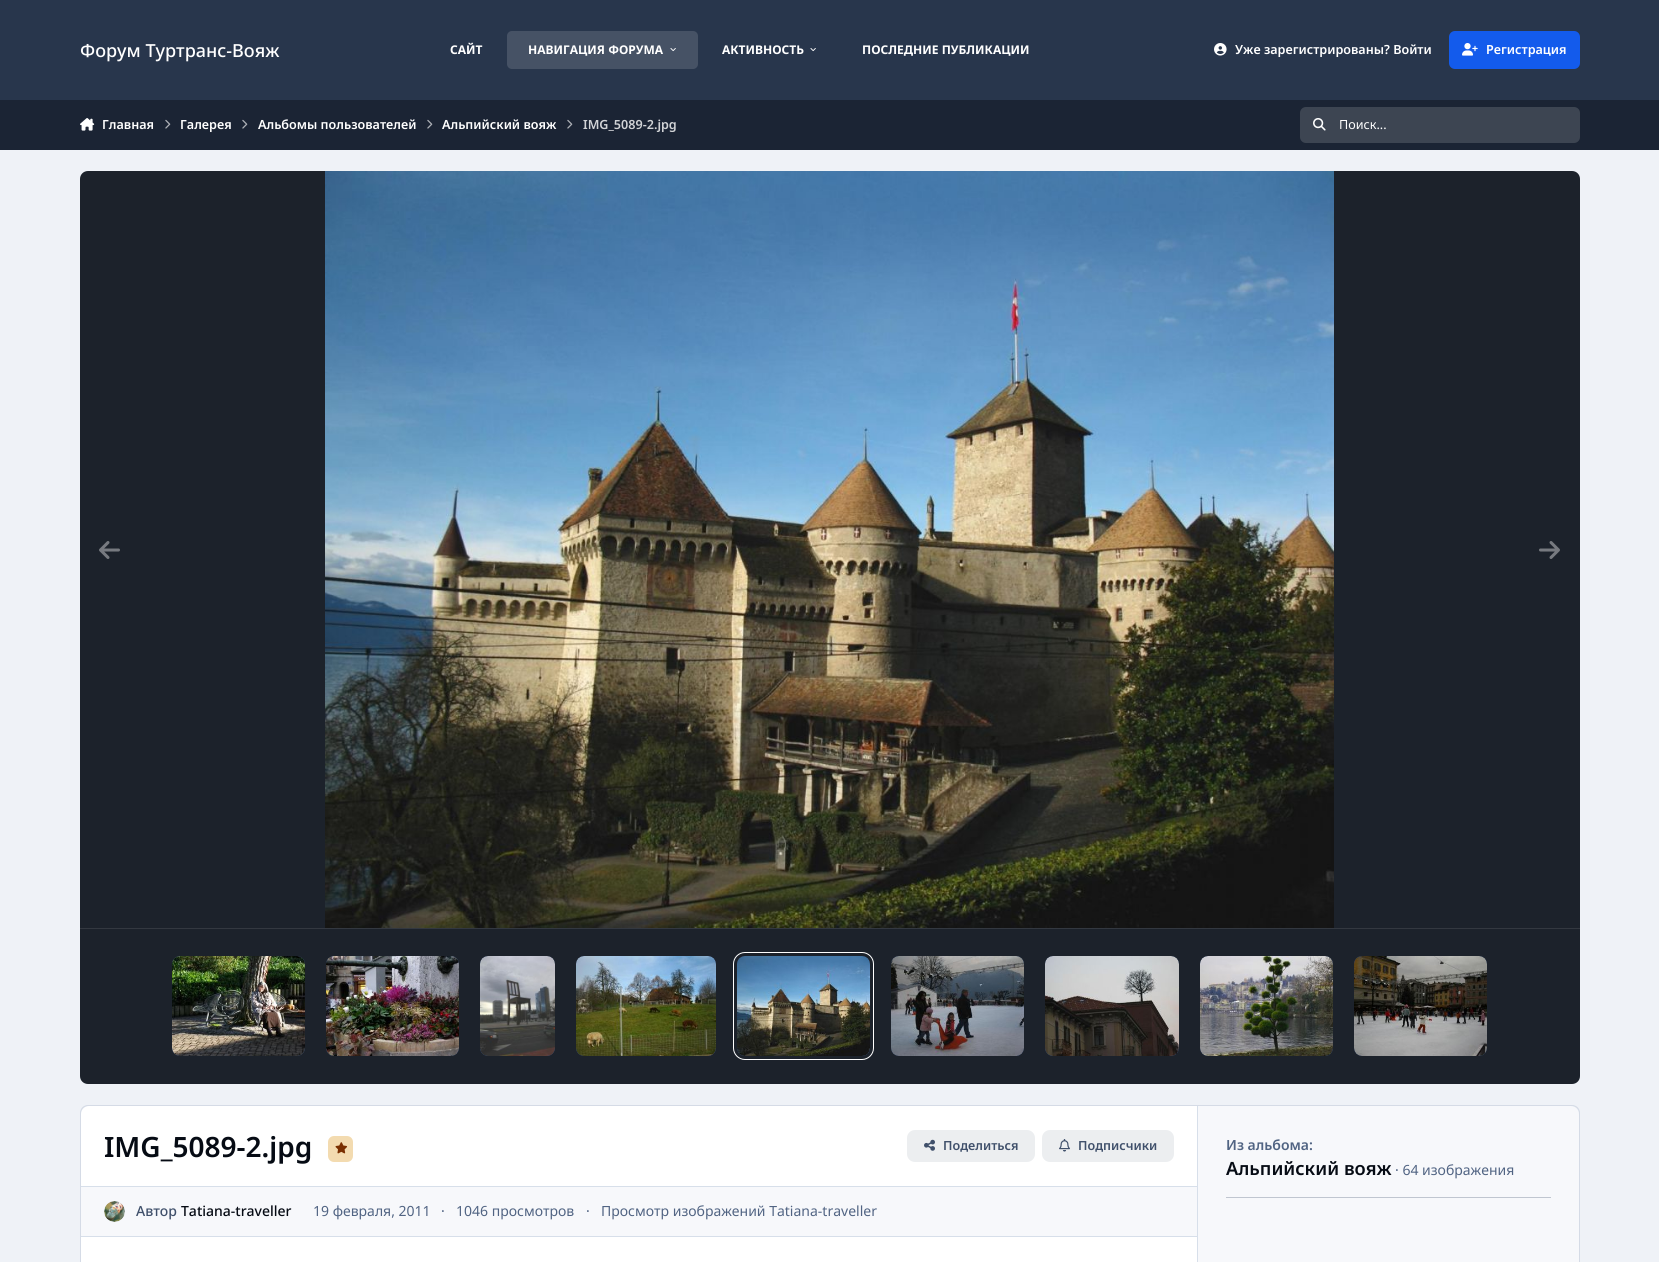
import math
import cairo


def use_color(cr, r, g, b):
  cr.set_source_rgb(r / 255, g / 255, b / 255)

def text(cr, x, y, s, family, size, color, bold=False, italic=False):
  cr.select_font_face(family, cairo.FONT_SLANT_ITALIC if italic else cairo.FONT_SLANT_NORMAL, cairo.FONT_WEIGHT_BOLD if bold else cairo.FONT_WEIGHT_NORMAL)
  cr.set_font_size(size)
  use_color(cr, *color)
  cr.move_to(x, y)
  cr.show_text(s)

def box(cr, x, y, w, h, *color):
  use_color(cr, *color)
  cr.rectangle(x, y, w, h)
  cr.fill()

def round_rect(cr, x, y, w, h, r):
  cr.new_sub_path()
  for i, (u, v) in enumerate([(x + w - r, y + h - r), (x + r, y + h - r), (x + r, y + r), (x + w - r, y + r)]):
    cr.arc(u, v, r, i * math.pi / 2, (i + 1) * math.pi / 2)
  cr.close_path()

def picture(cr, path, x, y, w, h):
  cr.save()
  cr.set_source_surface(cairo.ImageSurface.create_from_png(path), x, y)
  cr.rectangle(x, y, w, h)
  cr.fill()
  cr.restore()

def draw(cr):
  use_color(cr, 239, 242, 247)
  cr.paint()
  box(cr, 0, 0, 1659, 100, 40, 54, 76)
  use_color(cr, 70, 82, 101)
  round_rect(cr, 507, 31, 191, 38, 5)
  cr.fill()
  picture(cr, "img_01.png", 670, 48, 6, 4)
  picture(cr, "img_02.png", 810, 48, 6, 4)
  picture(cr, "img_03.png", 1214, 43, 13, 13)
  use_color(cr, 19, 91, 236)
  round_rect(cr, 1449, 31, 131, 38, 6)
  cr.fill()
  picture(cr, "img_04.png", 1462, 43, 16, 13)
  box(cr, 0, 100, 1659, 50, 27, 36, 52)
  picture(cr, "img_05.png", 80, 118, 15, 13)
  picture(cr, "img_06.png", 165, 119, 6, 10)
  picture(cr, "img_06.png", 242, 119, 6, 10)
  picture(cr, "img_06.png", 427, 119, 6, 10)
  picture(cr, "img_06.png", 567, 119, 6, 10)
  use_color(cr, 61, 69, 82)
  round_rect(cr, 1300, 107, 280, 36, 6)
  cr.fill()
  picture(cr, "img_07.png", 1313, 118, 13, 13)
  use_color(cr, 28, 34, 43)
  cr.new_path()
  cr.move_to(88, 171)
  cr.line_to(1572, 171)
  cr.curve_to(1576.5, 171, 1580, 174.5, 1580, 179)
  cr.line_to(1580, 928)
  cr.line_to(80, 928)
  cr.line_to(80, 179)
  cr.curve_to(80, 174.5, 83.5, 171, 88, 171)
  cr.close_path()
  cr.fill()
  picture(cr, "img_08.png", 325, 171, 1009, 757)
  picture(cr, "img_09.png", 99, 541, 21, 18)
  picture(cr, "img_10.png", 1539, 541, 21, 18)
  cr.new_path()
  cr.move_to(80, 928)
  cr.line_to(1580, 928)
  cr.line_to(1580, 1076)
  cr.curve_to(1580, 1080.5, 1576.5, 1084, 1572, 1084)
  cr.line_to(88, 1084)
  cr.curve_to(83.5, 1084, 80, 1080.5, 80, 1076)
  cr.close_path()
  cr.fill()
  box(cr, 80, 928, 1500, 1, 51, 56, 64)
  use_color(cr, 56, 72, 98)
  round_rect(cr, 172, 956, 133, 100, 8)
  cr.fill()
  picture(cr, "img_11.png", 172, 956, 133, 100)
  round_rect(cr, 326, 956, 133, 100, 8)
  cr.fill()
  picture(cr, "img_12.png", 326, 956, 133, 100)
  round_rect(cr, 480, 956, 75, 100, 8)
  cr.fill()
  picture(cr, "img_13.png", 480, 956, 75, 100)
  round_rect(cr, 576, 956, 140, 100, 8)
  cr.fill()
  picture(cr, "img_14.png", 576, 956, 140, 100)
  round_rect(cr, 737, 956, 133, 100, 8)
  cr.fill()
  round_rect(cr, 733.5, 952.5, 140, 107, 11.5)
  use_color(cr, 255, 255, 255)
  cr.set_line_width(1)
  cr.stroke()
  picture(cr, "img_15.png", 737, 956, 133, 100)
  use_color(cr, 56, 72, 98)
  round_rect(cr, 891, 956, 133, 100, 8)
  cr.fill()
  picture(cr, "img_16.png", 891, 956, 133, 100)
  round_rect(cr, 1045, 956, 134, 100, 8)
  cr.fill()
  picture(cr, "img_17.png", 1045, 956, 134, 100)
  round_rect(cr, 1200, 956, 133, 100, 8)
  cr.fill()
  picture(cr, "img_18.png", 1200, 956, 133, 100)
  round_rect(cr, 1354, 956, 133, 100, 8)
  cr.fill()
  picture(cr, "img_19.png", 1354, 956, 133, 100)
  use_color(cr, 215, 223, 234)
  round_rect(cr, 80.5, 1105.5, 1499, 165, 7.5)
  cr.fill_preserve()
  use_color(cr, 213, 219, 230)
  cr.stroke()
  use_color(cr, 255, 255, 255)
  cr.new_path()
  cr.move_to(89, 1106)
  cr.line_to(1197, 1106)
  cr.line_to(1197, 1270)
  cr.line_to(89, 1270)
  cr.curve_to(84.5, 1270, 81, 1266.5, 81, 1262)
  cr.line_to(81, 1114)
  cr.curve_to(81, 1109.5, 84.5, 1106, 89, 1106)
  cr.close_path()
  cr.fill()
  box(cr, 81, 1236, 1116, 1, 215, 223, 234)
  use_color(cr, 243, 219, 176)
  round_rect(cr, 328, 1136, 25, 26, 6)
  cr.fill()
  picture(cr, "img_20.png", 335, 1142, 13, 12)
  use_color(cr, 236, 238, 240)
  round_rect(cr, 907, 1130, 128, 32, 8)
  cr.fill()
  picture(cr, "img_21.png", 924, 1139, 11, 12)
  round_rect(cr, 1042, 1130, 132, 32, 8)
  cr.fill()
  picture(cr, "img_22.png", 1059, 1139, 11, 13)
  box(cr, 81, 1187, 1116, 49, 247, 248, 251)
  box(cr, 81, 1186, 1116, 1, 215, 223, 234)
  use_color(cr, 229, 234, 242)
  cr.arc(114.5, 1211.5, 10.5, 0, 2 * math.pi)
  cr.fill()
  picture(cr, "img_23.png", 104, 1201, 21, 21)
  use_color(cr, 247, 248, 251)
  cr.new_path()
  cr.move_to(1198, 1106)
  cr.line_to(1571, 1106)
  cr.curve_to(1575.5, 1106, 1579, 1109.5, 1579, 1114)
  cr.line_to(1579, 1262)
  cr.curve_to(1579, 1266.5, 1575.5, 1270, 1571, 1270)
  cr.line_to(1198, 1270)
  cr.close_path()
  cr.fill()
  box(cr, 1226, 1197, 325, 1, 192, 198, 208)
  text(cr, 80, 57, "Форум Туртранс-Вояж", "Noto Sans Medium", 18, (255, 255, 255))
  text(cr, 450, 54, "САЙТ", "Noto Sans", 12, (255, 255, 255), bold=True)
  text(cr, 528, 54, "НАВИГАЦИЯ ФОРУМА", "Noto Sans", 12, (255, 255, 255), bold=True)
  text(cr, 722, 54, "АКТИВНОСТЬ", "Noto Sans", 12, (255, 255, 255), bold=True)
  text(cr, 862, 54, "ПОСЛЕДНИЕ ПУБЛИКАЦИИ", "Noto Sans", 12, (255, 255, 255), bold=True)
  text(cr, 1235, 54, "Уже зарегистрированы? Войти", "Noto Sans SemiBold", 12.6, (255, 255, 255))
  text(cr, 1486, 54, "Регистрация", "Noto Sans SemiBold", 12.6, (255, 255, 255))
  text(cr, 102, 129, "Главная", "Noto Sans SemiBold", 12.6, (255, 255, 255))
  text(cr, 180, 129, "Галерея", "Noto Sans SemiBold", 12.6, (255, 255, 255))
  text(cr, 258, 129, "Альбомы пользователей", "Noto Sans SemiBold", 12.6, (255, 255, 255))
  text(cr, 442, 129, "Альпийский вояж", "Noto Sans SemiBold", 12.6, (255, 255, 255))
  text(cr, 583, 129, "IMG_5089-2.jpg", "Noto Sans SemiBold", 12.6, (209, 211, 214))
  text(cr, 1339, 129, "Поиск...", "Noto Sans", 12.6, (255, 255, 255))
  text(cr, 104, 1157, "IMG_5089-2.jpg", "Noto Sans SemiBold", 28, (6, 11, 20))
  text(cr, 943, 1150, "Поделиться", "Noto Sans SemiBold", 12.6, (64, 80, 107))
  text(cr, 1078, 1150, "Подписчики", "Noto Sans SemiBold", 12.6, (64, 80, 107))
  text(cr, 136, 1216, "Автор", "Noto Sans Medium", 14, (64, 80, 107))
  text(cr, 181, 1216, "Tatiana-traveller", "Noto Sans Medium", 14, (6, 11, 20))
  text(cr, 313, 1216, "19 февраля, 2011", "Noto Sans", 14, (81, 100, 131))
  text(cr, 441, 1216, "·", "Noto Sans", 14, (81, 100, 131))
  text(cr, 456, 1216, "1046 просмотров", "Noto Sans", 14, (81, 100, 131))
  text(cr, 586, 1216, "·", "Noto Sans", 14, (81, 100, 131))
  text(cr, 601, 1216, "Просмотр изображений Tatiana-traveller", "Noto Sans", 14, (81, 100, 131))
  text(cr, 1226, 1150, "Из альбома:", "Noto Sans SemiBold", 14, (81, 100, 131))
  text(cr, 1226, 1175, "Альпийский вояж", "Noto Sans SemiBold", 18.25, (6, 11, 20))
  text(cr, 1395, 1175, "· 64 изображения", "Noto Sans", 14, (81, 100, 131))


surface = cairo.ImageSurface(cairo.FORMAT_RGB24, 1659, 1262)
cr = cairo.Context(surface)
options = cairo.FontOptions()
options.set_hint_metrics(cairo.HINT_METRICS_OFF)
options.set_hint_style(cairo.HINT_STYLE_NONE)
cr.set_font_options(options)
cr.set_miter_limit(4)
draw(cr)
surface.write_to_png("out.png")
